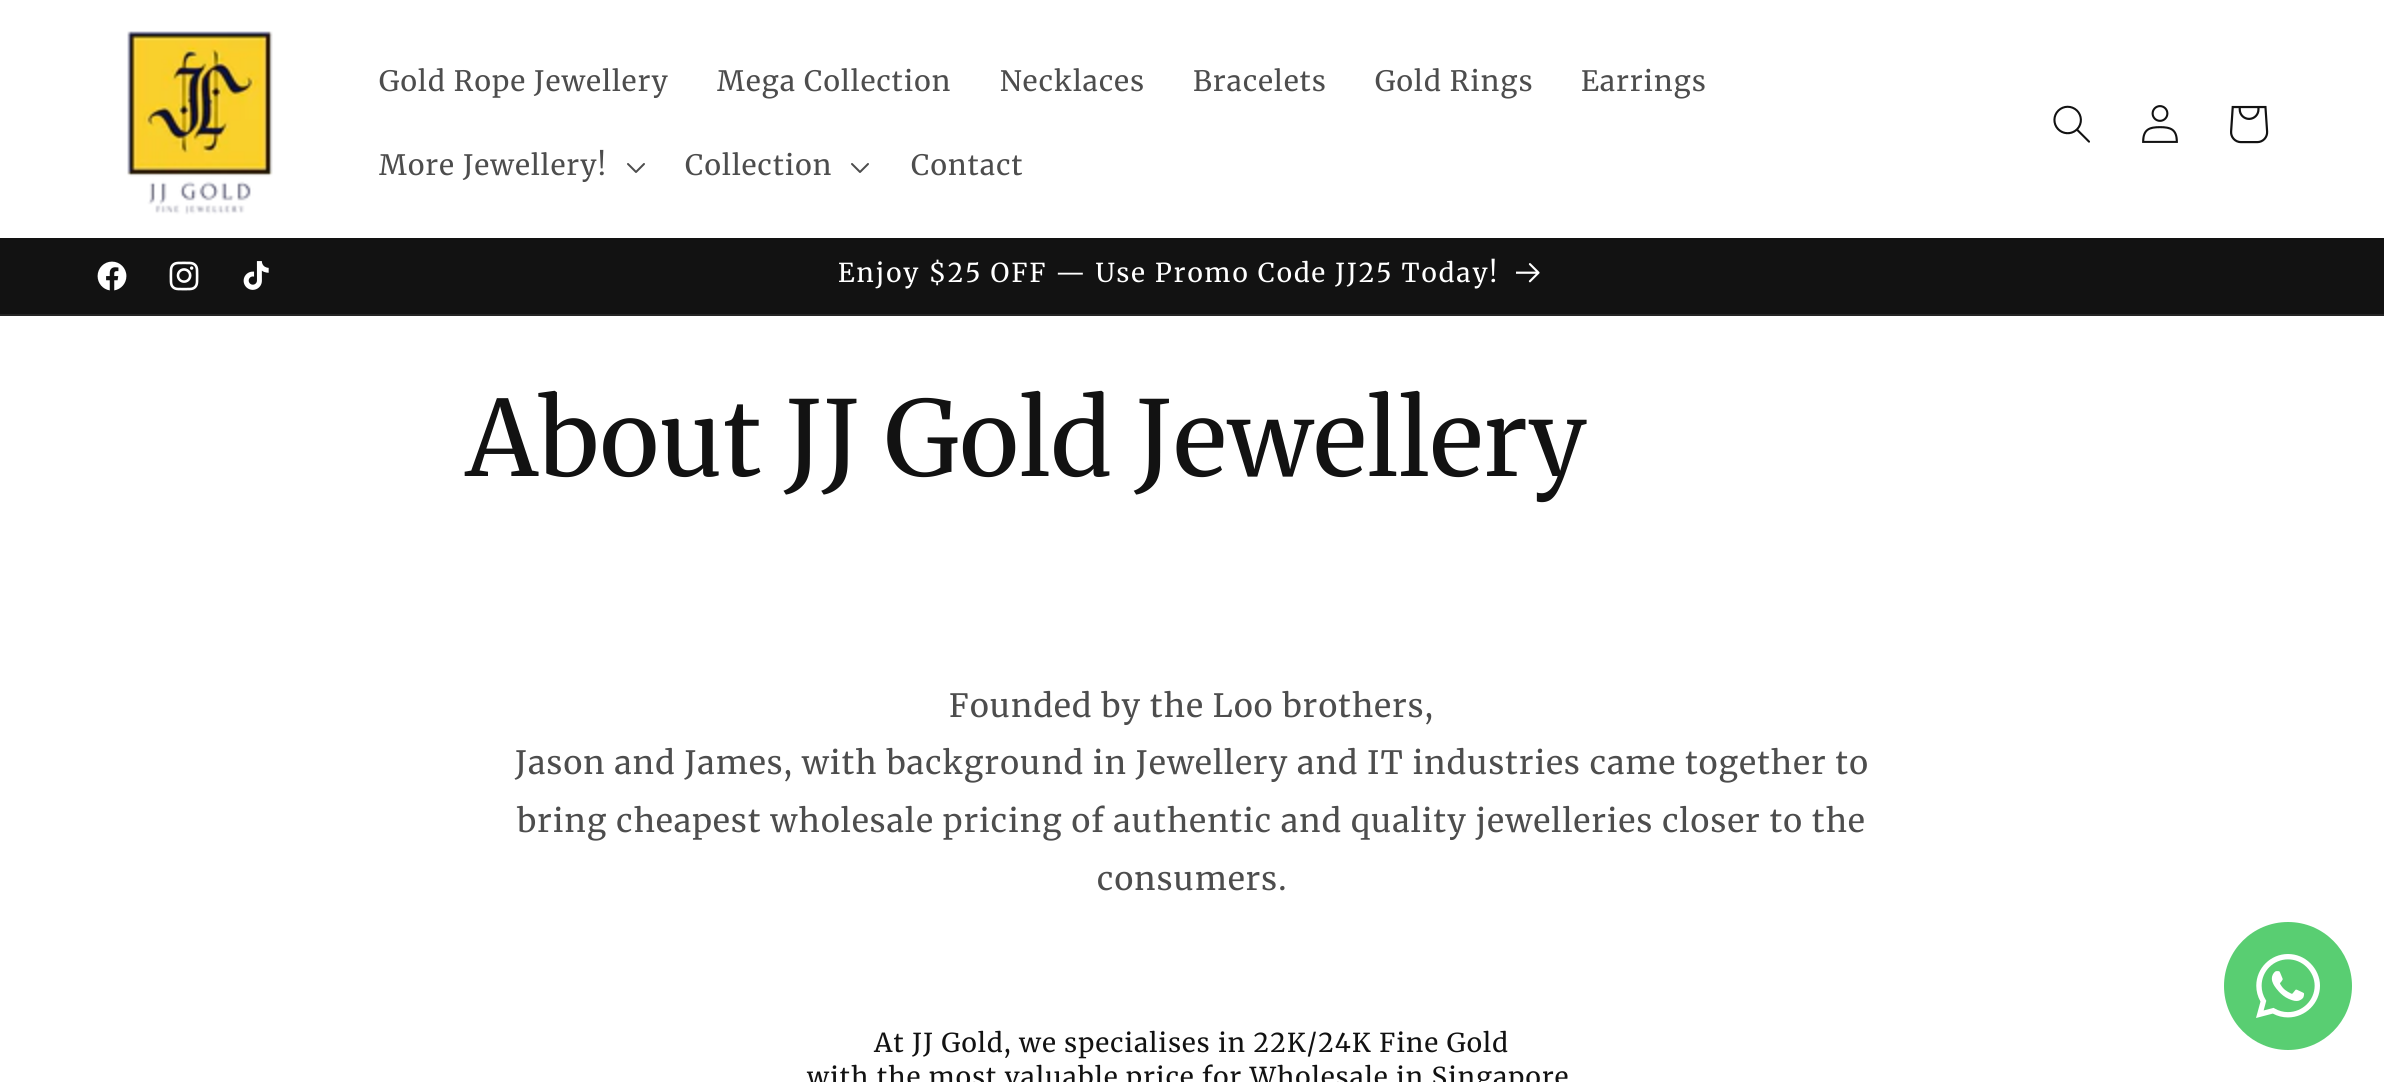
import math
import cairo


def use_color(cr, r, g, b):
  cr.set_source_rgb(r / 255, g / 255, b / 255)

def spaced_text(cr, x, y, s, letter, word):
  cr.move_to(x, y)
  for ch in s:
    cr.show_text(ch)
    cr.rel_move_to(letter + word * (ch == ' '), 0)

def box(cr, x, y, w, h, *color):
  use_color(cr, *color)
  cr.rectangle(x, y, w, h)
  cr.fill()

def picture(cr, path, x, y, w, h):
  cr.save()
  cr.set_source_surface(cairo.ImageSurface.create_from_png(path), x, y)
  cr.rectangle(x, y, w, h)
  cr.fill()
  cr.restore()

def draw(cr):
  use_color(cr, 255, 255, 255)
  cr.paint()
  picture(cr, "img_01.png", 127, 31, 146, 184)
  picture(cr, "img_02.png", 627, 163, 18, 10)
  picture(cr, "img_02.png", 851, 163, 18, 10)
  picture(cr, "img_03.png", 2053, 105, 37, 38)
  picture(cr, "img_04.png", 2142, 105, 36, 38)
  picture(cr, "img_05.png", 2230, 105, 39, 39)
  box(cr, 0, 238, 2384, 76, 18, 18, 18)
  box(cr, 0, 314, 2384, 2, 37, 37, 37)
  picture(cr, "img_06.png", 97, 261, 30, 30)
  picture(cr, "img_07.png", 169, 261, 30, 30)
  picture(cr, "img_08.png", 243, 261, 26, 29)
  picture(cr, "img_09.png", 1516, 263, 24, 20)
  use_color(cr, 89, 206, 114)
  cr.arc(2288, 986, 64, 0, 2 * math.pi)
  cr.fill()
  picture(cr, "img_10.png", 2256, 954, 64, 64)
  cr.select_font_face("Merriweather")
  cr.set_font_size(28)
  use_color(cr, 77, 77, 77)
  spaced_text(cr, 379, 91, "Gold Rope Jewellery", 1.2, 0)
  spaced_text(cr, 717, 91, "Mega Collection", 1.2, 0)
  spaced_text(cr, 1000, 91, "Necklaces", 1.2, 0)
  spaced_text(cr, 1193, 91, "Bracelets", 1.2, 0)
  spaced_text(cr, 1375, 91, "Gold Rings", 1.2, 0)
  spaced_text(cr, 1581, 91, "Earrings", 1.2, 0)
  spaced_text(cr, 379, 175, "More Jewellery!", 1.2, 0)
  spaced_text(cr, 685, 175, "Collection", 1.2, 0)
  spaced_text(cr, 911, 175, "Contact", 1.2, 0)
  cr.set_font_size(26)
  use_color(cr, 255, 255, 255)
  spaced_text(cr, 838, 282, "Enjoy $25 OFF — Use Promo Code JJ25 Today!", 2, 0)
  cr.select_font_face("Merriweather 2")
  cr.set_font_size(104)
  use_color(cr, 18, 18, 18)
  spaced_text(cr, 466, 476, "About JJ Gold Jewellery", 1.2, 0)
  cr.select_font_face("Merriweather")
  cr.set_font_size(32)
  use_color(cr, 77, 77, 77)
  spaced_text(cr, 949, 717, "Founded by the Loo brothers,", 1.2, 0)
  spaced_text(cr, 515, 774, "Jason and James, with background in Jewellery and IT industries came together to", 1.2, 0)
  spaced_text(cr, 517, 832, "bring cheapest wholesale pricing of authentic and quality jewelleries closer to the", 1.2, 0)
  spaced_text(cr, 1097, 890, "consumers.", 1.2, 0)
  cr.set_font_size(26)
  use_color(cr, 18, 18, 18)
  spaced_text(cr, 874, 1052, "At JJ Gold, we specialises in 22K/24K Fine Gold", 1.2, 0)
  spaced_text(cr, 807, 1086, "with the most valuable price for Wholesale in Singapore", 1.2, 0)


surface = cairo.ImageSurface(cairo.FORMAT_RGB24, 2384, 1082)
cr = cairo.Context(surface)
options = cairo.FontOptions()
options.set_hint_metrics(cairo.HINT_METRICS_OFF)
options.set_hint_style(cairo.HINT_STYLE_NONE)
cr.set_font_options(options)
cr.set_miter_limit(4)
draw(cr)
surface.write_to_png("out.png")
